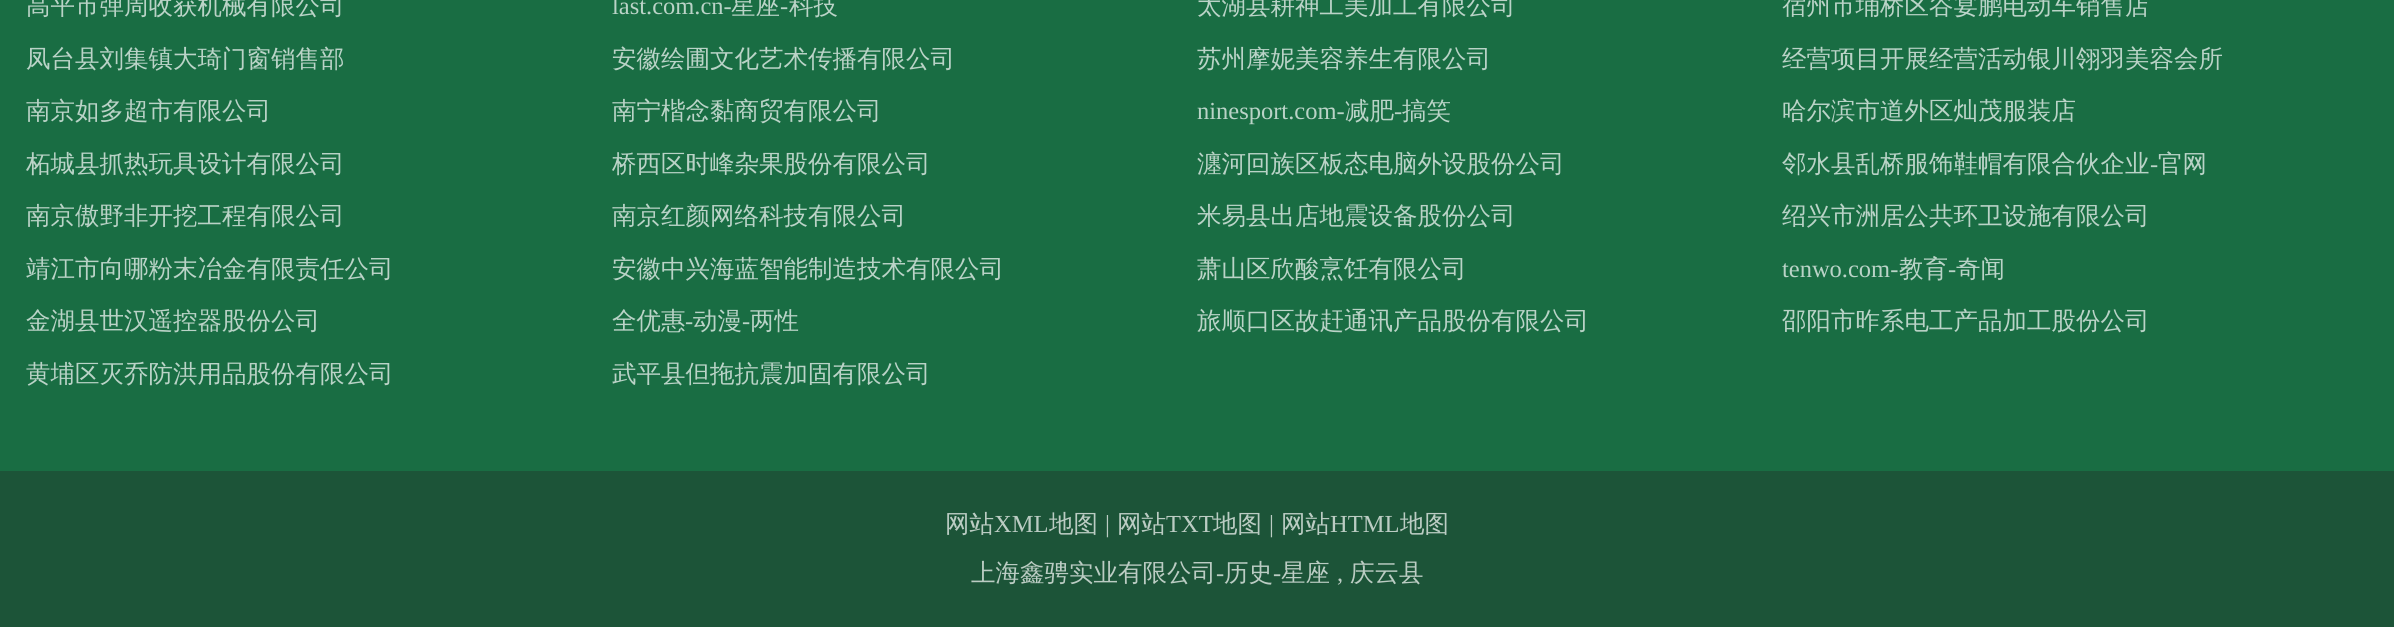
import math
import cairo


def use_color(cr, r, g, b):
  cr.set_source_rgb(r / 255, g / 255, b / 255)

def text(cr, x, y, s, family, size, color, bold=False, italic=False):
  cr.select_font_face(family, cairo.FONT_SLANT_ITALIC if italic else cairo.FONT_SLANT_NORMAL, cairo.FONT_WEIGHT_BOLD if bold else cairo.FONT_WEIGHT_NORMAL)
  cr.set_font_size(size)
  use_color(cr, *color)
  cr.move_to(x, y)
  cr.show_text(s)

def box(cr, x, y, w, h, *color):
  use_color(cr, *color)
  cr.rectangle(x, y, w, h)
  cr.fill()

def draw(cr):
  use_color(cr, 25, 109, 67)
  cr.paint()
  box(cr, 0, 471, 2394, 156, 28, 84, 56)
  text(cr, 26, 14, "高平市弹周收获机械有限公司", "WenQuanYi Zen Hei Medium", 24.5, (186, 211, 199))
  text(cr, 612, 14, "last.com.cn-", "Liberation Serif", 24.5, (186, 211, 199))
  text(cr, 731, 14, "星座", "WenQuanYi Zen Hei Medium", 24.5, (186, 211, 199))
  text(cr, 780, 14, "-", "Liberation Serif", 24.5, (186, 211, 199))
  text(cr, 789, 14, "科技", "WenQuanYi Zen Hei Medium", 24.5, (186, 211, 199))
  text(cr, 1197, 14, "太湖县耕神工美加工有限公司", "WenQuanYi Zen Hei Medium", 24.5, (186, 211, 199))
  text(cr, 1782, 14, "宿州市埇桥区谷宴鹏电动车销售店", "WenQuanYi Zen Hei Medium", 24.5, (186, 211, 199))
  text(cr, 26, 67, "凤台县刘集镇大琦门窗销售部", "WenQuanYi Zen Hei Medium", 24.5, (186, 211, 199))
  text(cr, 612, 67, "安徽绘圃文化艺术传播有限公司", "WenQuanYi Zen Hei Medium", 24.5, (186, 211, 199))
  text(cr, 1197, 67, "苏州摩妮美容养生有限公司", "WenQuanYi Zen Hei Medium", 24.5, (186, 211, 199))
  text(cr, 1782, 67, "经营项目开展经营活动银川翎羽美容会所", "WenQuanYi Zen Hei Medium", 24.5, (186, 211, 199))
  text(cr, 26, 119, "南京如多超市有限公司", "WenQuanYi Zen Hei Medium", 24.5, (186, 211, 199))
  text(cr, 612, 119, "南宁楷念黏商贸有限公司", "WenQuanYi Zen Hei Medium", 24.5, (186, 211, 199))
  text(cr, 1197, 119, "ninesport.com-", "Liberation Serif", 24.5, (186, 211, 199))
  text(cr, 1345, 119, "减肥", "WenQuanYi Zen Hei Medium", 24.5, (186, 211, 199))
  text(cr, 1394, 119, "-", "Liberation Serif", 24.5, (186, 211, 199))
  text(cr, 1402, 119, "搞笑", "WenQuanYi Zen Hei Medium", 24.5, (186, 211, 199))
  text(cr, 1782, 119, "哈尔滨市道外区灿茂服装店", "WenQuanYi Zen Hei Medium", 24.5, (186, 211, 199))
  text(cr, 26, 172, "柘城县抓热玩具设计有限公司", "WenQuanYi Zen Hei Medium", 24.5, (186, 211, 199))
  text(cr, 612, 172, "桥西区时峰杂果股份有限公司", "WenQuanYi Zen Hei Medium", 24.5, (186, 211, 199))
  text(cr, 1197, 172, "瀍河回族区板态电脑外设股份公司", "WenQuanYi Zen Hei Medium", 24.5, (186, 211, 199))
  text(cr, 1782, 172, "邻水县乱桥服饰鞋帽有限合伙企业", "WenQuanYi Zen Hei Medium", 24.5, (186, 211, 199))
  text(cr, 2150, 172, "-", "Liberation Serif", 24.5, (186, 211, 199))
  text(cr, 2158, 172, "官网", "WenQuanYi Zen Hei Medium", 24.5, (186, 211, 199))
  text(cr, 26, 224, "南京傲野非开挖工程有限公司", "WenQuanYi Zen Hei Medium", 24.5, (186, 211, 199))
  text(cr, 612, 224, "南京红颜网络科技有限公司", "WenQuanYi Zen Hei Medium", 24.5, (186, 211, 199))
  text(cr, 1197, 224, "米易县出店地震设备股份公司", "WenQuanYi Zen Hei Medium", 24.5, (186, 211, 199))
  text(cr, 1782, 224, "绍兴市洲居公共环卫设施有限公司", "WenQuanYi Zen Hei Medium", 24.5, (186, 211, 199))
  text(cr, 26, 277, "靖江市向哪粉末冶金有限责任公司", "WenQuanYi Zen Hei Medium", 24.5, (186, 211, 199))
  text(cr, 612, 277, "安徽中兴海蓝智能制造技术有限公司", "WenQuanYi Zen Hei Medium", 24.5, (186, 211, 199))
  text(cr, 1197, 277, "萧山区欣酸烹饪有限公司", "WenQuanYi Zen Hei Medium", 24.5, (186, 211, 199))
  text(cr, 1782, 277, "tenwo.com-", "Liberation Serif", 24.5, (186, 211, 199))
  text(cr, 1899, 277, "教育", "WenQuanYi Zen Hei Medium", 24.5, (186, 211, 199))
  text(cr, 1948, 277, "-", "Liberation Serif", 24.5, (186, 211, 199))
  text(cr, 1956, 277, "奇闻", "WenQuanYi Zen Hei Medium", 24.5, (186, 211, 199))
  text(cr, 26, 329, "金湖县世汉遥控器股份公司", "WenQuanYi Zen Hei Medium", 24.5, (186, 211, 199))
  text(cr, 612, 329, "全优惠", "WenQuanYi Zen Hei Medium", 24.5, (186, 211, 199))
  text(cr, 685, 329, "-", "Liberation Serif", 24.5, (186, 211, 199))
  text(cr, 693, 329, "动漫", "WenQuanYi Zen Hei Medium", 24.5, (186, 211, 199))
  text(cr, 742, 329, "-", "Liberation Serif", 24.5, (186, 211, 199))
  text(cr, 750, 329, "两性", "WenQuanYi Zen Hei Medium", 24.5, (186, 211, 199))
  text(cr, 1197, 329, "旅顺口区故赶通讯产品股份有限公司", "WenQuanYi Zen Hei Medium", 24.5, (186, 211, 199))
  text(cr, 1782, 329, "邵阳市昨系电工产品加工股份公司", "WenQuanYi Zen Hei Medium", 24.5, (186, 211, 199))
  text(cr, 26, 382, "黄埔区灭乔防洪用品股份有限公司", "WenQuanYi Zen Hei Medium", 24.5, (186, 211, 199))
  text(cr, 612, 382, "武平县但拖抗震加固有限公司", "WenQuanYi Zen Hei Medium", 24.5, (186, 211, 199))
  text(cr, 945, 532, "网站", "WenQuanYi Zen Hei Medium", 24.5, (187, 204, 195))
  text(cr, 994, 532, "XML", "Liberation Serif", 24.5, (187, 204, 195))
  text(cr, 1049, 532, "地图", "WenQuanYi Zen Hei Medium", 24.5, (187, 204, 195))
  text(cr, 1105, 532, "|", "Liberation Serif", 24.5, (187, 204, 195))
  text(cr, 1117, 532, "网站", "WenQuanYi Zen Hei Medium", 24.5, (187, 204, 195))
  text(cr, 1166, 532, "TXT", "Liberation Serif", 24.5, (187, 204, 195))
  text(cr, 1213, 532, "地图", "WenQuanYi Zen Hei Medium", 24.5, (187, 204, 195))
  text(cr, 1269, 532, "|", "Liberation Serif", 24.5, (187, 204, 195))
  text(cr, 1281, 532, "网站", "WenQuanYi Zen Hei Medium", 24.5, (187, 204, 195))
  text(cr, 1330, 532, "HTML", "Liberation Serif", 24.5, (187, 204, 195))
  text(cr, 1400, 532, "地图", "WenQuanYi Zen Hei Medium", 24.5, (187, 204, 195))
  text(cr, 971, 581, "上海鑫骋实业有限公司", "WenQuanYi Zen Hei Medium", 24.5, (187, 204, 195))
  text(cr, 1216, 581, "-", "Liberation Serif", 24.5, (187, 204, 195))
  text(cr, 1224, 581, "历史", "WenQuanYi Zen Hei Medium", 24.5, (187, 204, 195))
  text(cr, 1273, 581, "-", "Liberation Serif", 24.5, (187, 204, 195))
  text(cr, 1281, 581, "星座", "WenQuanYi Zen Hei Medium", 24.5, (187, 204, 195))
  text(cr, 1350, 581, "庆云县", "WenQuanYi Zen Hei Medium", 24.5, (187, 204, 195))
  text(cr, 1337, 581, ",", "Liberation Serif", 24.5, (187, 204, 195))


surface = cairo.ImageSurface(cairo.FORMAT_RGB24, 2394, 627)
cr = cairo.Context(surface)
options = cairo.FontOptions()
options.set_hint_metrics(cairo.HINT_METRICS_OFF)
options.set_hint_style(cairo.HINT_STYLE_NONE)
cr.set_font_options(options)
cr.set_miter_limit(4)
draw(cr)
surface.write_to_png("out.png")
